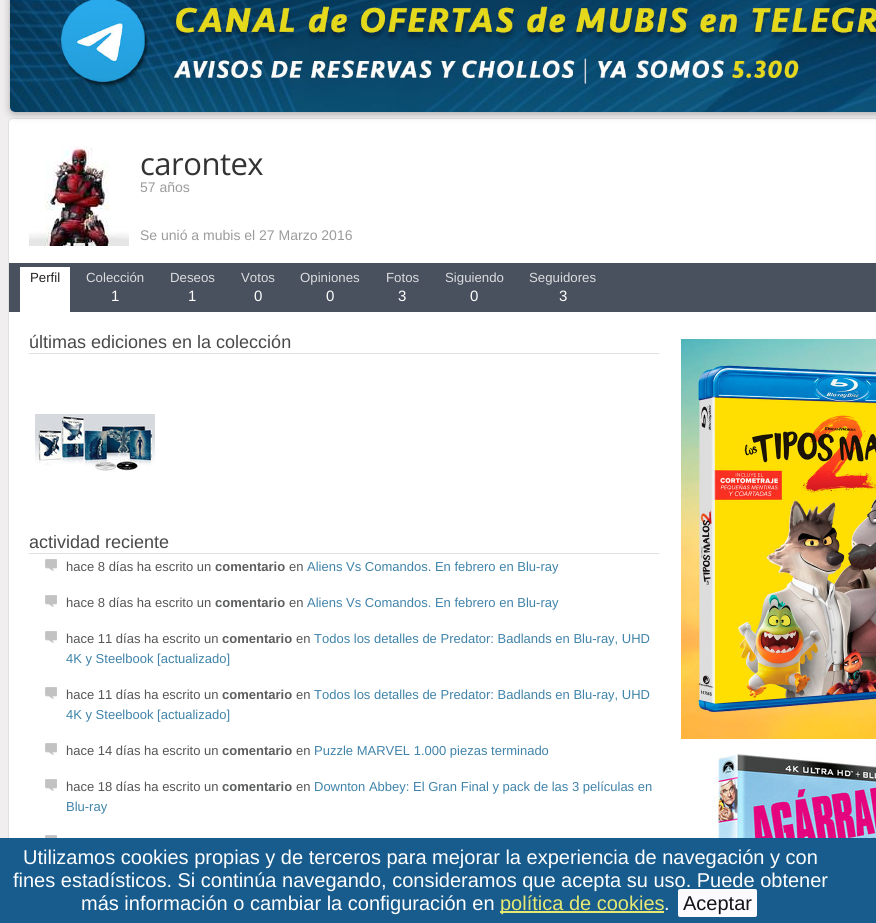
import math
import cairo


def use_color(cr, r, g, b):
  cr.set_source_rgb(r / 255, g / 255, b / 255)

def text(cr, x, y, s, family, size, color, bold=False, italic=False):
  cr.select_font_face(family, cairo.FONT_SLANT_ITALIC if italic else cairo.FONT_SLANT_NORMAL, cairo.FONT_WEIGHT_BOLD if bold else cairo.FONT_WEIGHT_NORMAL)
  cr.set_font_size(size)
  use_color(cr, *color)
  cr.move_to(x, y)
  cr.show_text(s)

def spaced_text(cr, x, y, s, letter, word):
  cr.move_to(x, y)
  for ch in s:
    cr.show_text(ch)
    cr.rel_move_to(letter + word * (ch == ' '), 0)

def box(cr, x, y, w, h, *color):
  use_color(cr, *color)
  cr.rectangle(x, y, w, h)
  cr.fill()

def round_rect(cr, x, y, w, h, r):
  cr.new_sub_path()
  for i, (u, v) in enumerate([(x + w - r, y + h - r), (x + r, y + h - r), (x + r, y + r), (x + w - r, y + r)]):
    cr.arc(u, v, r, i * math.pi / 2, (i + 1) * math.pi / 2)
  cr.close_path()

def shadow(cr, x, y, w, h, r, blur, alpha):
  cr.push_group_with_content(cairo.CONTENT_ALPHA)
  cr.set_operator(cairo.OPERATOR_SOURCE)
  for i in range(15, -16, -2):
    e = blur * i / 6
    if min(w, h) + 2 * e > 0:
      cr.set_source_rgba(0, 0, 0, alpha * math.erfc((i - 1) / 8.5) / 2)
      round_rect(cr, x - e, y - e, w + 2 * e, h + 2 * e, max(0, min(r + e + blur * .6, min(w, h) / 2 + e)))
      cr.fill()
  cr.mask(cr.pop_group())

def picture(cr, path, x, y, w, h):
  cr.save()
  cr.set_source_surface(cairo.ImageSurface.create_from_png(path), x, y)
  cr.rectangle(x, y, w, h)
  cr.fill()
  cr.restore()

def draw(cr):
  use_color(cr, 240, 238, 238)
  cr.paint()
  use_color(cr, 255, 255, 255)
  cr.new_path()
  cr.move_to(13, 118.5)
  cr.line_to(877, 118.5)
  cr.curve_to(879.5, 118.5, 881.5, 120.5, 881.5, 123)
  cr.line_to(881.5, 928.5)
  cr.line_to(8.5, 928.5)
  cr.line_to(8.5, 123)
  cr.curve_to(8.5, 120.5, 10.5, 118.5, 13, 118.5)
  cr.close_path()
  cr.fill_preserve()
  use_color(cr, 224, 224, 224)
  cr.set_line_width(1)
  cr.stroke()
  use_color(cr, 170, 170, 170)
  shadow(cr, 10, -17, 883, 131, 5, 4, 1)
  picture(cr, "img_01.png", 10, 0, 866, 112)
  picture(cr, "img_02.png", 29, 146, 100, 100)
  box(cr, 9, 263, 867, 49, 74, 81, 94)
  box(cr, 20, 267, 50, 45, 255, 255, 255)
  box(cr, 29, 353, 630, 1, 226, 223, 223)
  picture(cr, "img_03.png", 35, 414, 120, 58)
  box(cr, 29, 553, 630, 1, 226, 223, 223)
  picture(cr, "img_04.png", 45, 559, 12, 12)
  picture(cr, "img_04.png", 45, 595, 12, 12)
  picture(cr, "img_04.png", 45, 631, 12, 12)
  picture(cr, "img_04.png", 45, 687, 12, 12)
  picture(cr, "img_04.png", 45, 743, 12, 12)
  picture(cr, "img_04.png", 45, 779, 12, 12)
  picture(cr, "img_05.png", 45, 835, 12, 3)
  picture(cr, "img_06.png", 681, 339, 195, 400)
  picture(cr, "img_07.png", 712, 754, 164, 84)
  box(cr, 0, 838, 876, 85, 24, 92, 142)
  box(cr, 500, 911, 164, 2, 229, 232, 114)
  cr.select_font_face("Open Sans")
  cr.set_font_size(31)
  use_color(cr, 51, 51, 51)
  spaced_text(cr, 140, 175, "carontex", -0.5, 0)
  text(cr, 140, 192, "57 años", "Liberation Sans", 14, (156, 155, 155))
  text(cr, 140, 240, "Se unió a mubis el 27 Marzo 2016", "Liberation Sans", 14, (156, 155, 155))
  text(cr, 30, 282, "Perfil", "Liberation Sans", 13.25, (34, 34, 34))
  text(cr, 86, 282, "Colección", "Liberation Sans", 13.25, (218, 221, 222))
  text(cr, 111, 301, "1", "Liberation Sans", 15, (255, 255, 255))
  text(cr, 170, 282, "Deseos", "Liberation Sans", 13.25, (218, 221, 222))
  text(cr, 188, 301, "1", "Liberation Sans", 15, (255, 255, 255))
  text(cr, 241, 282, "Votos", "Liberation Sans", 13.25, (218, 221, 222))
  text(cr, 254, 301, "0", "Liberation Sans", 15, (255, 255, 255))
  text(cr, 300, 282, "Opiniones", "Liberation Sans", 13.25, (218, 221, 222))
  text(cr, 326, 301, "0", "Liberation Sans", 15, (255, 255, 255))
  text(cr, 386, 282, "Fotos", "Liberation Sans", 13.25, (218, 221, 222))
  text(cr, 398, 301, "3", "Liberation Sans", 15, (255, 255, 255))
  text(cr, 445, 282, "Siguiendo", "Liberation Sans", 13.25, (218, 221, 222))
  text(cr, 470, 301, "0", "Liberation Sans", 15, (255, 255, 255))
  text(cr, 529, 282, "Seguidores", "Liberation Sans", 13.25, (218, 221, 222))
  text(cr, 559, 301, "3", "Liberation Sans", 15, (255, 255, 255))
  text(cr, 29, 348, "últimas ediciones en la colección", "Liberation Sans", 18, (74, 73, 73))
  text(cr, 29, 548, "actividad reciente", "Liberation Sans", 18, (74, 73, 73))
  text(cr, 66, 571, "hace 8 días ha escrito un", "Liberation Sans", 13, (85, 85, 85))
  text(cr, 215, 571, "comentario", "Liberation Sans", 13, (92, 93, 94), bold=True)
  text(cr, 289, 571, "en", "Liberation Sans", 13, (85, 85, 85))
  text(cr, 307, 571, "Aliens Vs Comandos. En febrero en Blu-ray", "Liberation Sans", 13, (64, 131, 169))
  text(cr, 66, 607, "hace 8 días ha escrito un", "Liberation Sans", 13, (85, 85, 85))
  text(cr, 215, 607, "comentario", "Liberation Sans", 13, (92, 93, 94), bold=True)
  text(cr, 289, 607, "en", "Liberation Sans", 13, (85, 85, 85))
  text(cr, 307, 607, "Aliens Vs Comandos. En febrero en Blu-ray", "Liberation Sans", 13, (64, 131, 169))
  text(cr, 66, 643, "hace 11 días ha escrito un", "Liberation Sans", 13, (85, 85, 85))
  text(cr, 222, 643, "comentario", "Liberation Sans", 13, (92, 93, 94), bold=True)
  text(cr, 296, 643, "en", "Liberation Sans", 13, (85, 85, 85))
  text(cr, 314, 643, "Todos los detalles de Predator: Badlands en Blu-ray, UHD", "Liberation Sans", 13, (64, 131, 169))
  text(cr, 66, 663, "4K y Steelbook [actualizado]", "Liberation Sans", 13, (64, 131, 169))
  text(cr, 66, 699, "hace 11 días ha escrito un", "Liberation Sans", 13, (85, 85, 85))
  text(cr, 222, 699, "comentario", "Liberation Sans", 13, (92, 93, 94), bold=True)
  text(cr, 296, 699, "en", "Liberation Sans", 13, (85, 85, 85))
  text(cr, 314, 699, "Todos los detalles de Predator: Badlands en Blu-ray, UHD", "Liberation Sans", 13, (64, 131, 169))
  text(cr, 66, 719, "4K y Steelbook [actualizado]", "Liberation Sans", 13, (64, 131, 169))
  text(cr, 66, 755, "hace 14 días ha escrito un", "Liberation Sans", 13, (85, 85, 85))
  text(cr, 222, 755, "comentario", "Liberation Sans", 13, (92, 93, 94), bold=True)
  text(cr, 296, 755, "en", "Liberation Sans", 13, (85, 85, 85))
  text(cr, 314, 755, "Puzzle MARVEL 1.000 piezas terminado", "Liberation Sans", 13, (64, 131, 169))
  text(cr, 66, 791, "hace 18 días ha escrito un", "Liberation Sans", 13, (85, 85, 85))
  text(cr, 222, 791, "comentario", "Liberation Sans", 13, (92, 93, 94), bold=True)
  text(cr, 296, 791, "en", "Liberation Sans", 13, (85, 85, 85))
  text(cr, 314, 791, "Downton Abbey: El Gran Final y pack de las 3 películas en", "Liberation Sans", 13, (64, 131, 169))
  text(cr, 66, 811, "Blu-ray", "Liberation Sans", 13, (64, 131, 169))
  text(cr, 23, 864, "Utilizamos cookies propias y de terceros para mejorar la experiencia de navegación y con", "Liberation Sans", 20, (255, 255, 255))
  text(cr, 13, 887, "fines estadísticos. Si continúa navegando, consideramos que acepta su uso. Puede obtener", "Liberation Sans", 20, (255, 255, 255))
  text(cr, 81, 910, "más información o cambiar la configuración en", "Liberation Sans", 20, (255, 255, 255))
  text(cr, 500, 910, "política de cookies", "Liberation Sans", 20, (229, 232, 114))
  text(cr, 664, 910, ".", "Liberation Sans", 20, (255, 255, 255))
  use_color(cr, 250, 250, 255)
  round_rect(cr, 678, 889, 79, 28, 2)
  cr.fill()
  text(cr, 683, 910, "Aceptar", "Liberation Sans", 20, (21, 19, 19))


surface = cairo.ImageSurface(cairo.FORMAT_RGB24, 876, 923)
cr = cairo.Context(surface)
options = cairo.FontOptions()
options.set_hint_metrics(cairo.HINT_METRICS_OFF)
options.set_hint_style(cairo.HINT_STYLE_NONE)
cr.set_font_options(options)
cr.set_miter_limit(4)
draw(cr)
surface.write_to_png("out.png")
